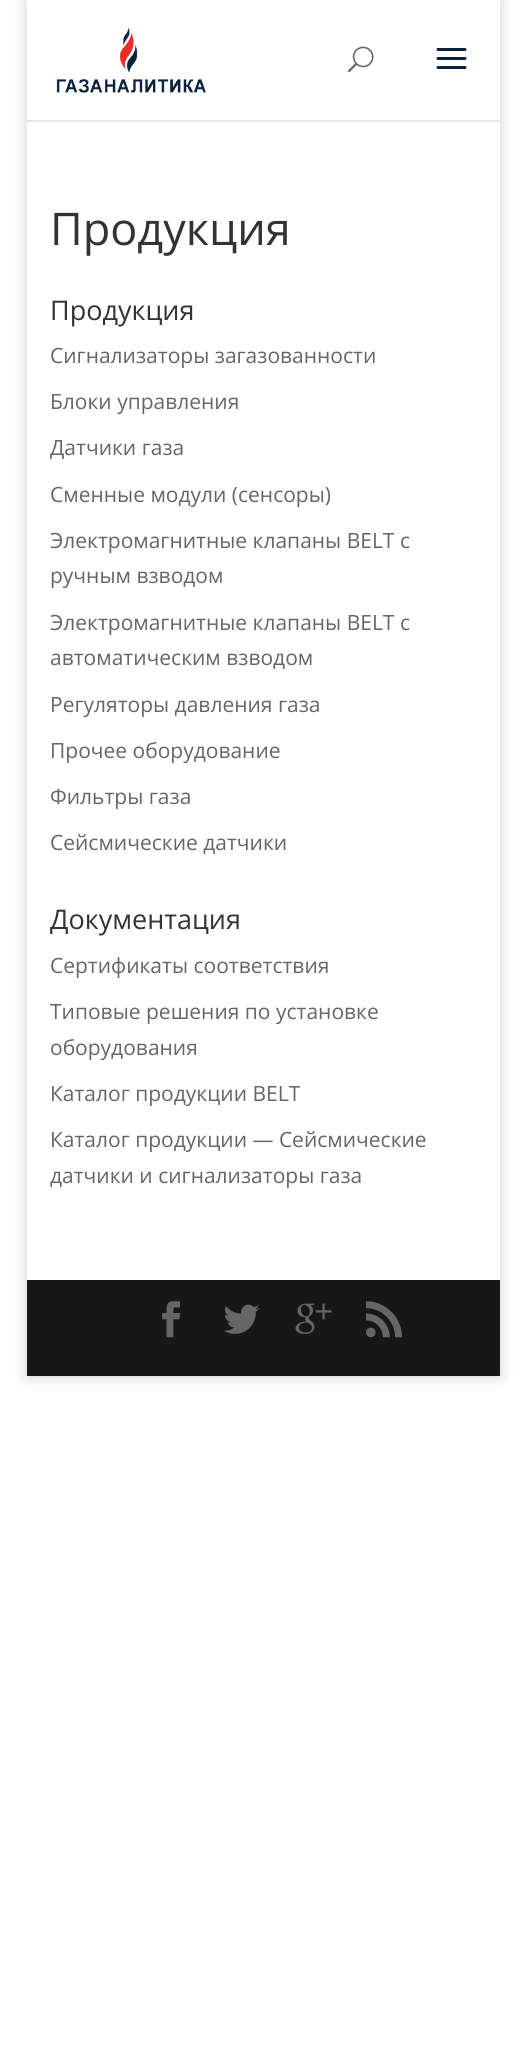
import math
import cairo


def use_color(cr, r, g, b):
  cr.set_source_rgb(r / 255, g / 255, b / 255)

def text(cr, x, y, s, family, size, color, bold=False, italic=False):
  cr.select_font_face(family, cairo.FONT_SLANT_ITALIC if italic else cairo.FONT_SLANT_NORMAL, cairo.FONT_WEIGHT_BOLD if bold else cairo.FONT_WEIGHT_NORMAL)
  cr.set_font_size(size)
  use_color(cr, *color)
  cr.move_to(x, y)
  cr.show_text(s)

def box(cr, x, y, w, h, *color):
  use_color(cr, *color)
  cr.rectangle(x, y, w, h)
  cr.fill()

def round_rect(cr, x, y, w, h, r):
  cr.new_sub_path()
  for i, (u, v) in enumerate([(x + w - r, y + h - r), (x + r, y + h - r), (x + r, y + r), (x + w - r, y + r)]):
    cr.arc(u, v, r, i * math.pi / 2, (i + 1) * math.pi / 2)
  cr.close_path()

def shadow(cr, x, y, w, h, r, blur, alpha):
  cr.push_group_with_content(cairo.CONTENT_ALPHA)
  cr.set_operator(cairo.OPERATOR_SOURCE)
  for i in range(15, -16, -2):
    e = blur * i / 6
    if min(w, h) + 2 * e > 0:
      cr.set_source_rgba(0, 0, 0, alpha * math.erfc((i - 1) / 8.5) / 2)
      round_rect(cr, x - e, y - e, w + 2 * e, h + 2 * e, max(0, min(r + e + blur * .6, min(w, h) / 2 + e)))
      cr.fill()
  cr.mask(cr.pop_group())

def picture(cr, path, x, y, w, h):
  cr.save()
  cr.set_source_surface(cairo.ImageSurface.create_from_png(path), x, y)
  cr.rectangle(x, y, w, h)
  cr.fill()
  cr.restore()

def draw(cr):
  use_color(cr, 255, 255, 255)
  cr.paint()
  use_color(cr, 0, 0, 0)
  shadow(cr, 27, 0, 473, 1376, 0, 7.5, 0.2)
  use_color(cr, 230, 230, 230)
  cr.new_path()
  cr.move_to(27, 120)
  cr.line_to(27, 122)
  cr.line_to(500, 122)
  cr.line_to(500, 2)
  cr.line_to(500, 120)
  cr.close_path()
  cr.fill()
  box(cr, 27, 0, 473, 120, 255, 255, 255)
  picture(cr, "img_01.png", 56, 27, 150, 66)
  picture(cr, "img_02.png", 347, 46, 27, 27)
  picture(cr, "img_03.png", 436, 48, 31, 21)
  box(cr, 27, 122, 473, 1158, 255, 255, 255)
  box(cr, 27, 1280, 473, 96, 23, 23, 23)
  picture(cr, "img_04.png", 162, 1301, 19, 37)
  picture(cr, "img_05.png", 223, 1304, 37, 30)
  picture(cr, "img_06.png", 295, 1303, 37, 31)
  picture(cr, "img_07.png", 366, 1301, 36, 37)
  text(cr, 50, 245, "Продукция", "Open Sans", 45, (51, 51, 51))
  text(cr, 50, 320, "Продукция", "Open Sans", 27, (51, 51, 51))
  text(cr, 50, 363, "Сигнализаторы загазованности", "Open Sans", 21, (102, 102, 102))
  text(cr, 50, 409, "Блоки управления", "Open Sans", 21, (102, 102, 102))
  text(cr, 50, 455, "Датчики газа", "Open Sans", 21, (102, 102, 102))
  text(cr, 50, 502, "Сменные модули (сенсоры)", "Open Sans", 21, (102, 102, 102))
  text(cr, 50, 548, "Электромагнитные клапаны BELT с", "Open Sans", 21, (102, 102, 102))
  text(cr, 50, 583, "ручным взводом", "Open Sans", 21, (102, 102, 102))
  text(cr, 50, 630, "Электромагнитные клапаны BELT с", "Open Sans", 21, (102, 102, 102))
  text(cr, 50, 665, "автоматическим взводом", "Open Sans", 21, (102, 102, 102))
  text(cr, 50, 712, "Регуляторы давления газа", "Open Sans", 21, (102, 102, 102))
  text(cr, 50, 758, "Прочее оборудование", "Open Sans", 21, (102, 102, 102))
  text(cr, 50, 804, "Фильтры газа", "Open Sans", 21, (102, 102, 102))
  text(cr, 50, 850, "Сейсмические датчики", "Open Sans", 21, (102, 102, 102))
  text(cr, 50, 929, "Документация", "Open Sans", 27, (51, 51, 51))
  text(cr, 50, 973, "Сертификаты соответствия", "Open Sans", 21, (102, 102, 102))
  text(cr, 50, 1019, "Типовые решения по установке", "Open Sans", 21, (102, 102, 102))
  text(cr, 50, 1055, "оборудования", "Open Sans", 21, (102, 102, 102))
  text(cr, 50, 1101, "Каталог продукции BELT", "Open Sans", 21, (102, 102, 102))
  text(cr, 50, 1147, "Каталог продукции — Сейсмические", "Open Sans", 21, (102, 102, 102))
  text(cr, 50, 1183, "датчики и сигнализаторы газа", "Open Sans", 21, (102, 102, 102))


surface = cairo.ImageSurface(cairo.FORMAT_RGB24, 525, 2070)
cr = cairo.Context(surface)
options = cairo.FontOptions()
options.set_hint_metrics(cairo.HINT_METRICS_OFF)
options.set_hint_style(cairo.HINT_STYLE_NONE)
cr.set_font_options(options)
cr.set_miter_limit(4)
draw(cr)
surface.write_to_png("out.png")
